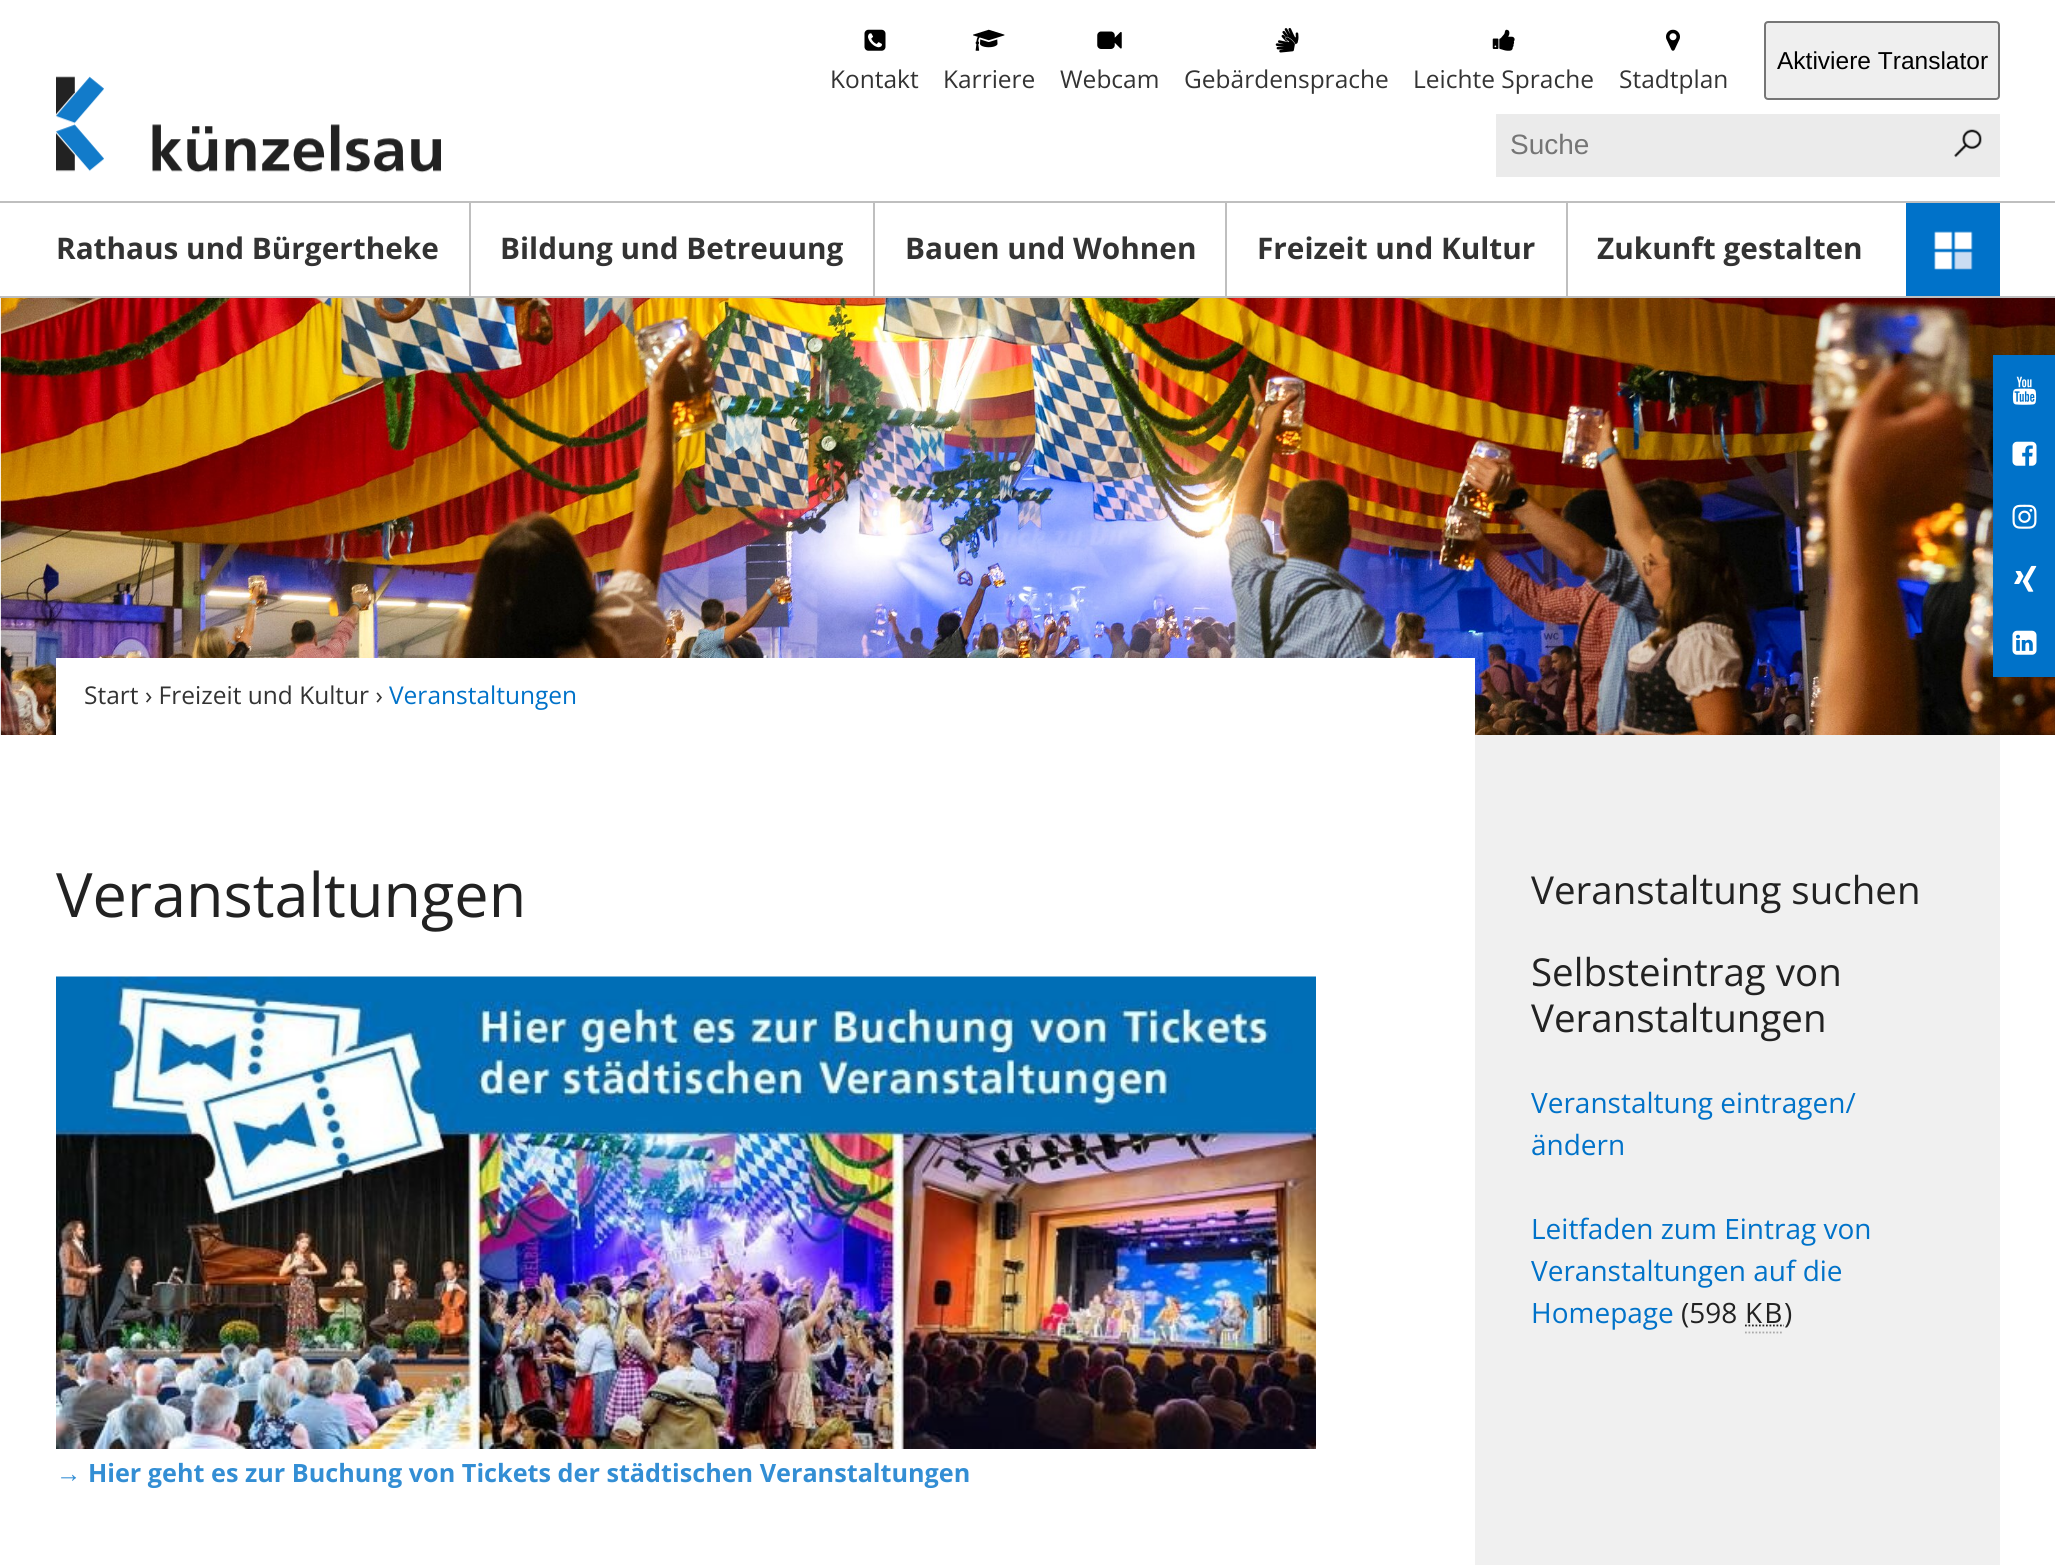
import math
import cairo


def use_color(cr, r, g, b):
  cr.set_source_rgb(r / 255, g / 255, b / 255)

def text(cr, x, y, s, family, size, color, bold=False, italic=False):
  cr.select_font_face(family, cairo.FONT_SLANT_ITALIC if italic else cairo.FONT_SLANT_NORMAL, cairo.FONT_WEIGHT_BOLD if bold else cairo.FONT_WEIGHT_NORMAL)
  cr.set_font_size(size)
  use_color(cr, *color)
  cr.move_to(x, y)
  cr.show_text(s)

def spaced_text(cr, x, y, s, letter, word):
  cr.move_to(x, y)
  for ch in s:
    cr.show_text(ch)
    cr.rel_move_to(letter + word * (ch == ' '), 0)

def box(cr, x, y, w, h, *color):
  use_color(cr, *color)
  cr.rectangle(x, y, w, h)
  cr.fill()

def round_rect(cr, x, y, w, h, r):
  cr.new_sub_path()
  for i, (u, v) in enumerate([(x + w - r, y + h - r), (x + r, y + h - r), (x + r, y + r), (x + w - r, y + r)]):
    cr.arc(u, v, r, i * math.pi / 2, (i + 1) * math.pi / 2)
  cr.close_path()

def picture(cr, path, x, y, w, h):
  cr.save()
  cr.set_source_surface(cairo.ImageSurface.create_from_png(path), x, y)
  cr.rectangle(x, y, w, h)
  cr.fill()
  cr.restore()

def draw(cr):
  use_color(cr, 255, 255, 255)
  cr.paint()
  box(cr, 0, 201, 2055, 2, 191, 191, 191)
  picture(cr, "img_01.png", 56, 76, 385, 97)
  use_color(cr, 239, 239, 239)
  round_rect(cr, 1765, 22, 234, 77, 3)
  cr.fill_preserve()
  use_color(cr, 118, 118, 118)
  cr.stroke()
  picture(cr, "img_02.png", 864, 29, 22, 22)
  picture(cr, "img_03.png", 973, 29, 32, 22)
  picture(cr, "img_04.png", 1097, 31, 25, 18)
  picture(cr, "img_05.png", 1275, 28, 24, 25)
  picture(cr, "img_06.png", 1492, 29, 23, 22)
  picture(cr, "img_07.png", 1666, 29, 14, 22)
  box(cr, 1496, 114, 504, 63, 235, 235, 235)
  picture(cr, "img_08.png", 1954, 129, 28, 29)
  box(cr, 0, 296, 2055, 2, 191, 191, 191)
  box(cr, 469, 203, 2, 93, 191, 191, 191)
  box(cr, 873, 203, 2, 93, 191, 191, 191)
  box(cr, 1225, 203, 2, 93, 191, 191, 191)
  box(cr, 1566, 203, 2, 93, 191, 191, 191)
  box(cr, 1906, 203, 94, 93, 0, 114, 201)
  picture(cr, "img_09.png", 1934, 231, 39, 39)
  picture(cr, "img_10.png", 0, 298, 2055, 437)
  box(cr, 1993, 355, 62, 322, 0, 114, 201)
  picture(cr, "img_11.png", 2012, 376, 25, 29)
  picture(cr, "img_12.png", 2012, 441, 25, 25)
  picture(cr, "img_13.png", 2012, 504, 25, 25)
  picture(cr, "img_14.png", 2014, 565, 23, 27)
  picture(cr, "img_15.png", 2012, 630, 25, 25)
  box(cr, 56, 658, 1419, 77, 255, 255, 255)
  picture(cr, "img_16.png", 56, 976, 1260, 473)
  box(cr, 1475, 735, 525, 830, 240, 240, 240)
  cr.new_path()
  cr.move_to(1745, 1332.5)
  cr.line_to(1783, 1332.5)
  use_color(cr, 170, 170, 170)
  cr.set_line_width(1.8)
  cr.set_dash([1.75, 1.75])
  cr.stroke()
  cr.new_path()
  cr.move_to(1745, 1325.5)
  cr.line_to(1784, 1325.5)
  use_color(cr, 34, 34, 34)
  cr.stroke()
  text(cr, 1777, 69, "Aktiviere Translator", "Liberation Sans", 24.5, (0, 0, 0))
  text(cr, 830, 88, "Kontakt", "Open Sans", 24.5, (51, 51, 51))
  text(cr, 943, 88, "Karriere", "Open Sans", 24.5, (51, 51, 51))
  text(cr, 1060, 88, "Webcam", "Open Sans", 24.5, (51, 51, 51))
  text(cr, 1184, 88, "Gebärdensprache", "Open Sans", 24.5, (51, 51, 51))
  text(cr, 1413, 88, "Leichte Sprache", "Open Sans", 24.5, (51, 51, 51))
  text(cr, 1619, 88, "Stadtplan", "Open Sans", 24.5, (51, 51, 51))
  text(cr, 1510, 154, "Suche", "Liberation Sans", 28, (117, 117, 117))
  text(cr, 56, 259, "Rathaus und Bürgertheke", "Open Sans", 29.75, (51, 51, 51), bold=True)
  text(cr, 500, 259, "Bildung und Betreuung", "Open Sans", 29.75, (51, 51, 51), bold=True)
  text(cr, 905, 259, "Bauen und Wohnen", "Open Sans", 29.75, (51, 51, 51), bold=True)
  text(cr, 1257, 259, "Freizeit und Kultur", "Open Sans", 29.75, (51, 51, 51), bold=True)
  text(cr, 1597, 259, "Zukunft gestalten", "Open Sans", 29.75, (51, 51, 51), bold=True)
  text(cr, 84, 704, "Start › Freizeit und Kultur ›", "Open Sans", 24.5, (51, 51, 51))
  text(cr, 389, 704, "Veranstaltungen", "Open Sans", 24.5, (0, 114, 201))
  text(cr, 56, 917, "Veranstaltungen", "Open Sans", 61.25, (34, 34, 34))
  text(cr, 56, 1482, "→", "Liberation Sans", 25.2, (51, 142, 212), bold=True)
  text(cr, 88, 1482, "Hier geht es zur Buchung von Tickets der städtischen Veranstaltungen", "Open Sans", 25.2, (51, 142, 212), bold=True)
  text(cr, 1531, 904, "Veranstaltung suchen", "Open Sans", 38.5, (34, 34, 34))
  text(cr, 1531, 986, "Selbsteintrag von", "Open Sans", 38.5, (34, 34, 34))
  text(cr, 1531, 1032, "Veranstaltungen", "Open Sans", 38.5, (34, 34, 34))
  text(cr, 1531, 1113, "Veranstaltung eintragen/", "Open Sans", 28, (0, 114, 201))
  text(cr, 1531, 1155, "ändern", "Open Sans", 28, (0, 114, 201))
  text(cr, 1531, 1239, "Leitfaden zum Eintrag von", "Open Sans", 28, (0, 114, 201))
  text(cr, 1531, 1281, "Veranstaltungen auf die", "Open Sans", 28, (0, 114, 201))
  text(cr, 1531, 1323, "Homepage", "Open Sans", 28, (0, 114, 201))
  text(cr, 1681, 1323, "(598", "Open Sans", 28, (34, 34, 34))
  spaced_text(cr, 1745, 1323, "KB", 2, 0)
  text(cr, 1784, 1323, ")", "Open Sans", 28, (34, 34, 34))


surface = cairo.ImageSurface(cairo.FORMAT_RGB24, 2055, 1565)
cr = cairo.Context(surface)
options = cairo.FontOptions()
options.set_hint_metrics(cairo.HINT_METRICS_OFF)
options.set_hint_style(cairo.HINT_STYLE_NONE)
cr.set_font_options(options)
cr.set_miter_limit(4)
draw(cr)
surface.write_to_png("out.png")
